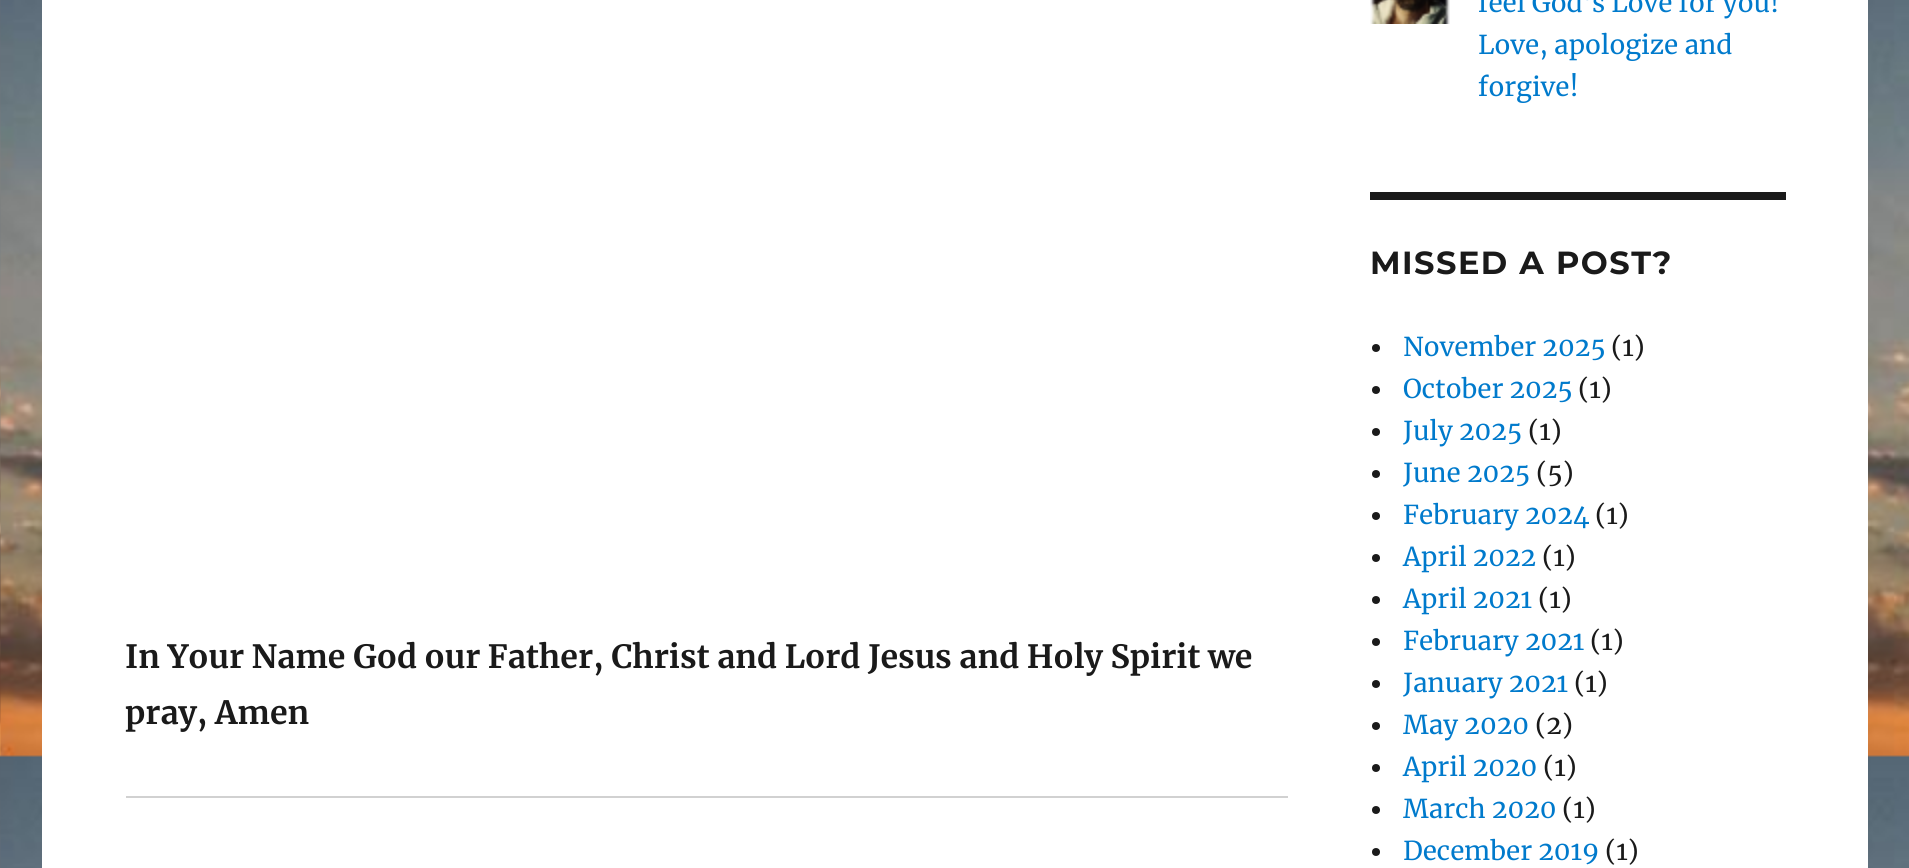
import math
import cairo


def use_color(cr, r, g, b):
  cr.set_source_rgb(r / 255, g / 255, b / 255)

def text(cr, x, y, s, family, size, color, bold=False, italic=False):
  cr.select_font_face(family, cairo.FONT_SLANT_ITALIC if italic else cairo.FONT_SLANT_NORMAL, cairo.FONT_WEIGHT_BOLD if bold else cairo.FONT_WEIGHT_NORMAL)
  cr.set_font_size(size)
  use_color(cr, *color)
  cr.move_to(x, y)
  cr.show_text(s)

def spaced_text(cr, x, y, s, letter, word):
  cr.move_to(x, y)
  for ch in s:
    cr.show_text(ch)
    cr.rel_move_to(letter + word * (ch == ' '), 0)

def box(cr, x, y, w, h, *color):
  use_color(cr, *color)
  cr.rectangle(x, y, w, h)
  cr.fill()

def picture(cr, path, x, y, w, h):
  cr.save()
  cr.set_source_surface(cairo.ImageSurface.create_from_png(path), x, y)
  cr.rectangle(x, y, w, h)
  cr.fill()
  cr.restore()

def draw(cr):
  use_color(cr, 255, 255, 255)
  cr.paint()
  picture(cr, "img_01.png", 0, 0, 1909, 868)
  box(cr, 42, 0, 1826, 868, 255, 255, 255)
  box(cr, 126, 796, 1162, 2, 209, 209, 209)
  picture(cr, "img_02.png", 1370, 0, 80, 24)
  box(cr, 1370, 192, 416, 8, 26, 26, 26)
  cr.arc(1376, 348, 4, 0, 2 * math.pi)
  cr.fill()
  cr.arc(1376, 390, 4, 0, 2 * math.pi)
  cr.fill()
  cr.arc(1376, 432, 4, 0, 2 * math.pi)
  cr.fill()
  cr.arc(1376, 474, 4, 0, 2 * math.pi)
  cr.fill()
  cr.arc(1376, 516, 4, 0, 2 * math.pi)
  cr.fill()
  cr.arc(1376, 558, 4, 0, 2 * math.pi)
  cr.fill()
  cr.arc(1376, 600, 4, 0, 2 * math.pi)
  cr.fill()
  cr.arc(1376, 642, 4, 0, 2 * math.pi)
  cr.fill()
  cr.arc(1376, 684, 4, 0, 2 * math.pi)
  cr.fill()
  cr.arc(1376, 726, 4, 0, 2 * math.pi)
  cr.fill()
  cr.arc(1376, 768, 4, 0, 2 * math.pi)
  cr.fill()
  cr.arc(1376, 810, 4, 0, 2 * math.pi)
  cr.fill()
  cr.arc(1376, 852, 4, 0, 2 * math.pi)
  cr.fill()
  text(cr, 125, 668, "In Your Name God our Father, Christ and Lord Jesus and Holy Spirit we", "Merriweather", 32, (26, 26, 26), bold=True)
  text(cr, 125, 724, "pray, Amen", "Merriweather", 32, (26, 26, 26), bold=True)
  text(cr, 1478, 12, "feel God's Love for you!", "Merriweather", 26, (0, 122, 204))
  text(cr, 1478, 54, "Love, apologize and", "Merriweather", 26, (0, 122, 204))
  text(cr, 1478, 96, "forgive!", "Merriweather", 26, (0, 122, 204))
  cr.select_font_face("Montserrat Thin")
  cr.set_font_size(32)
  use_color(cr, 26, 26, 26)
  spaced_text(cr, 1370, 274, "MISSED A POST?", 1.5, 0)
  text(cr, 1403, 356, "November 2025", "Merriweather", 26, (0, 122, 204))
  text(cr, 1611, 356, "(1)", "Merriweather", 26, (26, 26, 26))
  text(cr, 1403, 398, "October 2025", "Merriweather", 26, (0, 122, 204))
  text(cr, 1578, 398, "(1)", "Merriweather", 26, (26, 26, 26))
  text(cr, 1403, 440, "July 2025", "Merriweather", 26, (0, 122, 204))
  text(cr, 1528, 440, "(1)", "Merriweather", 26, (26, 26, 26))
  text(cr, 1403, 482, "June 2025", "Merriweather", 26, (0, 122, 204))
  text(cr, 1536, 482, "(5)", "Merriweather", 26, (26, 26, 26))
  text(cr, 1403, 524, "February 2024", "Merriweather", 26, (0, 122, 204))
  text(cr, 1595, 524, "(1)", "Merriweather", 26, (26, 26, 26))
  text(cr, 1403, 566, "April 2022", "Merriweather", 26, (0, 122, 204))
  text(cr, 1542, 566, "(1)", "Merriweather", 26, (26, 26, 26))
  text(cr, 1403, 608, "April 2021", "Merriweather", 26, (0, 122, 204))
  text(cr, 1538, 608, "(1)", "Merriweather", 26, (26, 26, 26))
  text(cr, 1403, 650, "February 2021", "Merriweather", 26, (0, 122, 204))
  text(cr, 1590, 650, "(1)", "Merriweather", 26, (26, 26, 26))
  text(cr, 1403, 692, "January 2021", "Merriweather", 26, (0, 122, 204))
  text(cr, 1574, 692, "(1)", "Merriweather", 26, (26, 26, 26))
  text(cr, 1403, 734, "May 2020", "Merriweather", 26, (0, 122, 204))
  text(cr, 1535, 734, "(2)", "Merriweather", 26, (26, 26, 26))
  text(cr, 1403, 776, "April 2020", "Merriweather", 26, (0, 122, 204))
  text(cr, 1543, 776, "(1)", "Merriweather", 26, (26, 26, 26))
  text(cr, 1403, 818, "March 2020", "Merriweather", 26, (0, 122, 204))
  text(cr, 1562, 818, "(1)", "Merriweather", 26, (26, 26, 26))
  text(cr, 1403, 860, "December 2019", "Merriweather", 26, (0, 122, 204))
  text(cr, 1605, 860, "(1)", "Merriweather", 26, (26, 26, 26))


surface = cairo.ImageSurface(cairo.FORMAT_RGB24, 1909, 868)
cr = cairo.Context(surface)
options = cairo.FontOptions()
options.set_hint_metrics(cairo.HINT_METRICS_OFF)
options.set_hint_style(cairo.HINT_STYLE_NONE)
cr.set_font_options(options)
cr.set_miter_limit(4)
draw(cr)
surface.write_to_png("out.png")
